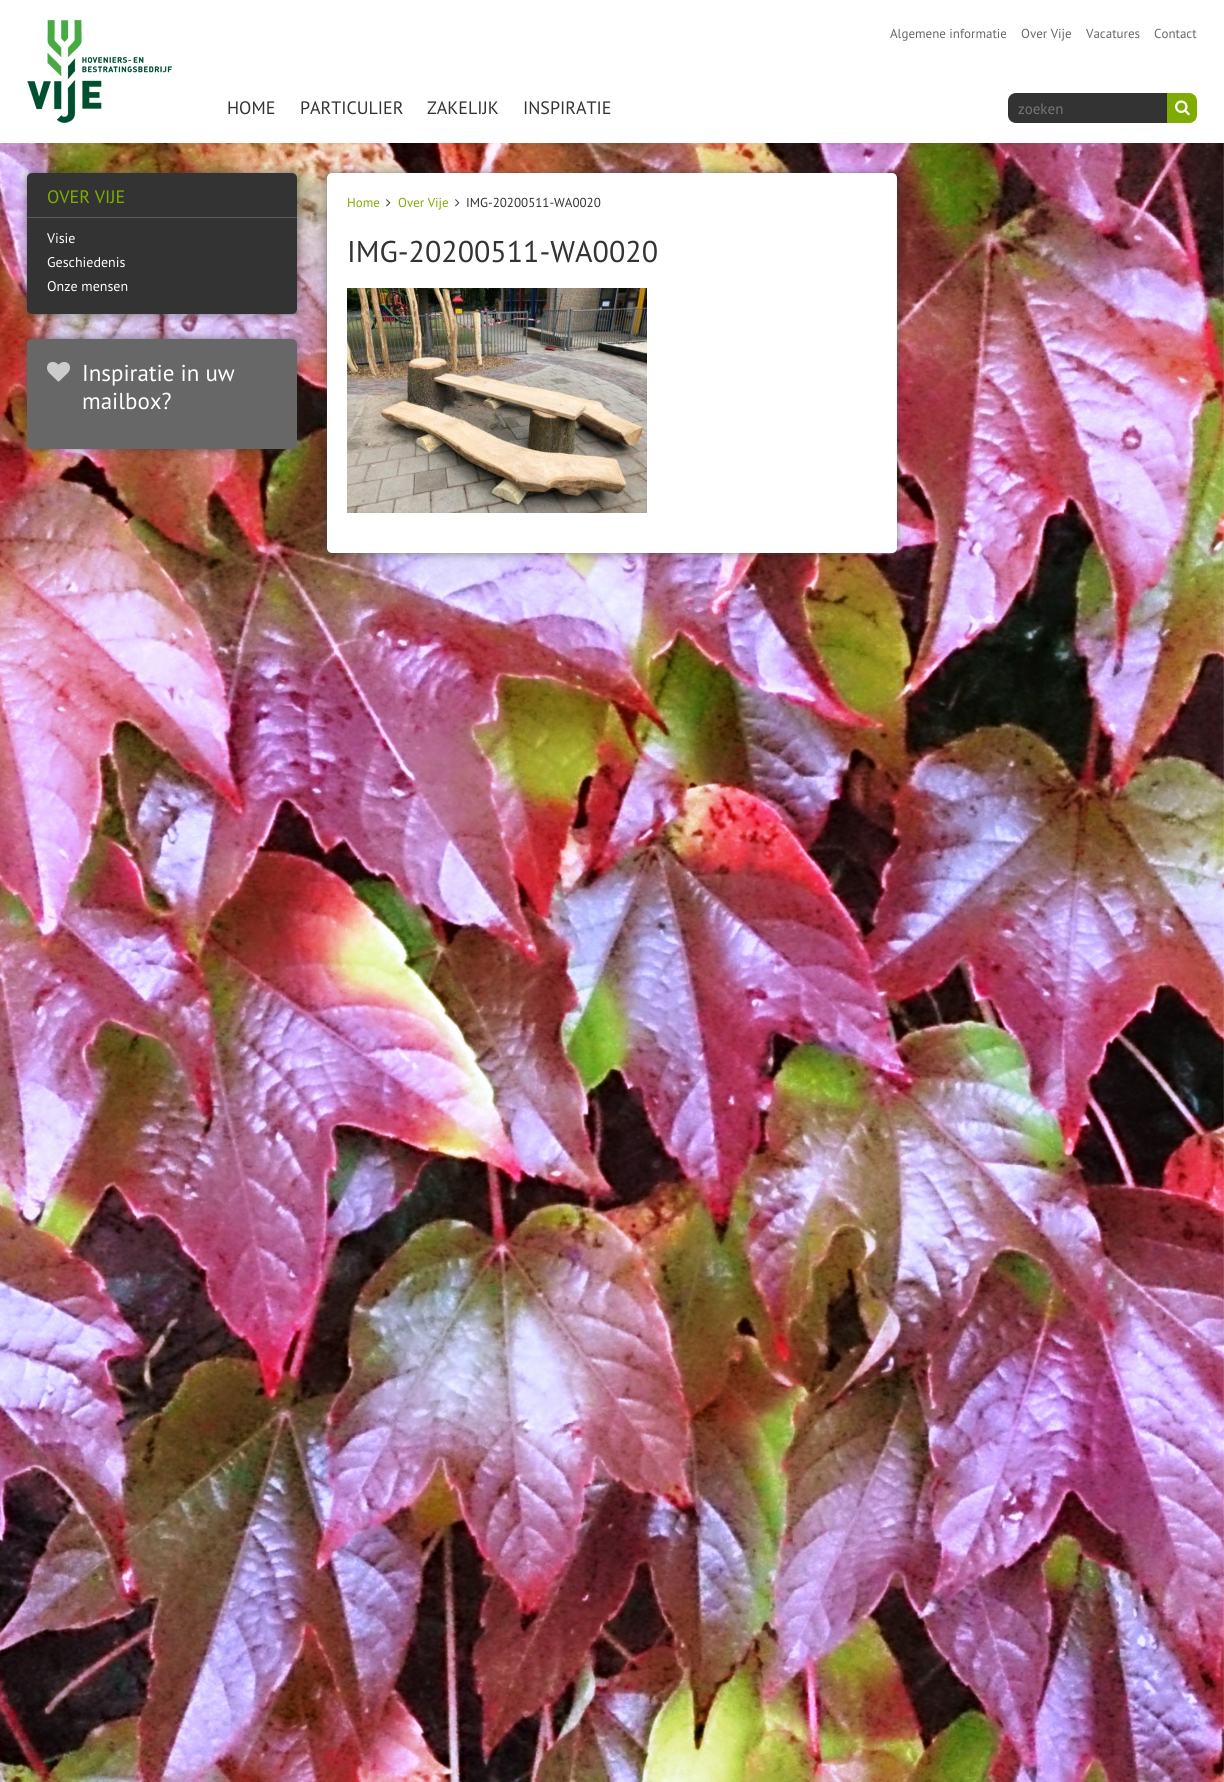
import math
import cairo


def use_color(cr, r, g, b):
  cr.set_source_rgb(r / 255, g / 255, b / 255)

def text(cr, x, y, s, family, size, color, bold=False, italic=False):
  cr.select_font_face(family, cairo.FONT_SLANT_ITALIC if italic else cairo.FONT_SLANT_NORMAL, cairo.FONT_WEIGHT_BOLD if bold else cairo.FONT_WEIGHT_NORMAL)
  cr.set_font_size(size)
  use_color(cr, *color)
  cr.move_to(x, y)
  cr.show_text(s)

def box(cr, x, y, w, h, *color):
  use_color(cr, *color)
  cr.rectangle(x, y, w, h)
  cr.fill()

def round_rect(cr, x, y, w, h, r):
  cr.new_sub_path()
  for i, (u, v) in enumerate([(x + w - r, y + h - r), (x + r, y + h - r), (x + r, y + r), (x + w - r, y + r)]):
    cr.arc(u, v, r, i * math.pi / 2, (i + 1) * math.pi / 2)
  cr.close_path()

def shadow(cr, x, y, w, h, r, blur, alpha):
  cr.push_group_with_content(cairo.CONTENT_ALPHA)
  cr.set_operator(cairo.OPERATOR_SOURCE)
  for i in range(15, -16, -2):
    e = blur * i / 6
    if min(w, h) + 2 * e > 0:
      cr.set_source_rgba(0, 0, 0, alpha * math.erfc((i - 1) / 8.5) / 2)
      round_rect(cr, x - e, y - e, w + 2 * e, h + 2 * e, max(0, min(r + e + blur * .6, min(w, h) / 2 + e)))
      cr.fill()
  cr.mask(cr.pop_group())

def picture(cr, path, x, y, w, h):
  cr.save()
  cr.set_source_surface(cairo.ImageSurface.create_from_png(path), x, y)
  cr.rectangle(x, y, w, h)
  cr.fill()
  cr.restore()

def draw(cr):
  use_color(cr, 255, 255, 255)
  cr.paint()
  picture(cr, "img_01.png", 0, 143, 1224, 1639)
  picture(cr, "img_02.png", 27, 20, 145, 103)
  use_color(cr, 51, 51, 51)
  cr.new_path()
  cr.move_to(1016, 93)
  cr.line_to(1182, 93)
  cr.curve_to(1190.5, 93, 1197, 99.5, 1197, 108)
  cr.curve_to(1197, 116.5, 1190.5, 123, 1182, 123)
  cr.line_to(1016, 123)
  cr.curve_to(1011.5, 123, 1008, 119.5, 1008, 115)
  cr.line_to(1008, 101)
  cr.curve_to(1008, 96.5, 1011.5, 93, 1016, 93)
  cr.close_path()
  cr.fill()
  use_color(cr, 127, 172, 0)
  cr.new_path()
  cr.move_to(1167, 93)
  cr.line_to(1189, 93)
  cr.curve_to(1193.5, 93, 1197, 96.5, 1197, 101)
  cr.line_to(1197, 115)
  cr.curve_to(1197, 119.5, 1193.5, 123, 1189, 123)
  cr.line_to(1167, 123)
  cr.close_path()
  cr.fill()
  picture(cr, "img_03.png", 1175, 100, 15, 16)
  use_color(cr, 50, 50, 50)
  shadow(cr, 27, 173, 270, 141, 5, 5, 0.6)
  use_color(cr, 51, 51, 51)
  round_rect(cr, 27, 173, 270, 141, 5)
  cr.fill()
  box(cr, 27, 217, 270, 1, 90, 90, 90)
  use_color(cr, 50, 50, 50)
  shadow(cr, 27, 339, 270, 110, 5, 5, 0.6)
  use_color(cr, 103, 103, 103)
  round_rect(cr, 27, 339, 270, 110, 5)
  cr.fill()
  picture(cr, "img_04.png", 47, 362, 23, 20)
  use_color(cr, 50, 50, 50)
  shadow(cr, 327, 173, 570, 380, 5, 5, 0.6)
  use_color(cr, 255, 255, 255)
  round_rect(cr, 327, 173, 570, 380, 5)
  cr.fill()
  picture(cr, "img_05.png", 386, 199, 5, 8)
  picture(cr, "img_05.png", 455, 199, 5, 8)
  picture(cr, "img_06.png", 347, 288, 300, 225)
  text(cr, 890, 38, "Algemene informatie", "PT Sans", 13, (103, 103, 103))
  text(cr, 1021, 38, "Over Vije", "PT Sans", 13, (103, 103, 103))
  text(cr, 1086, 38, "Vacatures", "PT Sans", 13, (103, 103, 103))
  text(cr, 1154, 38, "Contact", "PT Sans", 13, (103, 103, 103))
  text(cr, 227, 114, "HOME", "PT Sans", 18, (51, 51, 51))
  text(cr, 300, 114, "PARTICULIER", "PT Sans", 18, (51, 51, 51))
  text(cr, 427, 114, "ZAKELIJK", "PT Sans", 18, (51, 51, 51))
  text(cr, 523, 114, "INSPIRATIE", "PT Sans", 18, (51, 51, 51))
  text(cr, 1018, 114, "zoeken", "PT Sans", 15, (117, 117, 117))
  text(cr, 47, 203, "OVER VIJE", "PT Sans", 18, (127, 172, 0))
  text(cr, 47, 243, "Visie", "PT Sans", 14, (255, 255, 255))
  text(cr, 47, 267, "Geschiedenis", "PT Sans", 14, (255, 255, 255))
  text(cr, 47, 291, "Onze mensen", "PT Sans", 14, (255, 255, 255))
  text(cr, 82, 381, "Inspiratie in uw", "PT Sans", 23, (255, 255, 255))
  text(cr, 82, 409, "mailbox?", "PT Sans", 23, (255, 255, 255))
  text(cr, 347, 207, "Home", "PT Sans", 13, (127, 172, 0))
  text(cr, 398, 207, "Over Vije", "PT Sans", 13, (127, 172, 0))
  text(cr, 466, 207, "IMG-20200511-WA0020", "PT Sans", 13, (51, 51, 51))
  text(cr, 347, 262, "IMG-20200511-WA0020", "PT Sans", 30, (51, 51, 51))


surface = cairo.ImageSurface(cairo.FORMAT_RGB24, 1224, 1782)
cr = cairo.Context(surface)
options = cairo.FontOptions()
options.set_hint_metrics(cairo.HINT_METRICS_OFF)
options.set_hint_style(cairo.HINT_STYLE_NONE)
cr.set_font_options(options)
cr.set_miter_limit(4)
draw(cr)
surface.write_to_png("out.png")
